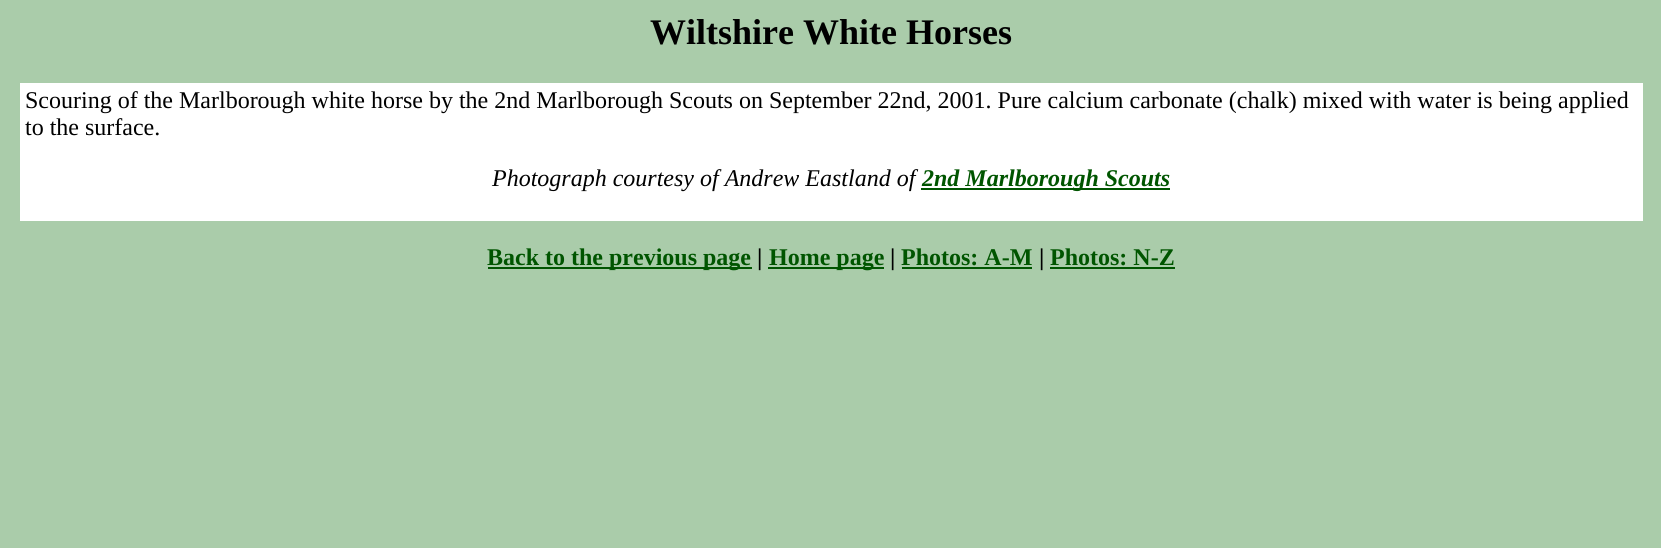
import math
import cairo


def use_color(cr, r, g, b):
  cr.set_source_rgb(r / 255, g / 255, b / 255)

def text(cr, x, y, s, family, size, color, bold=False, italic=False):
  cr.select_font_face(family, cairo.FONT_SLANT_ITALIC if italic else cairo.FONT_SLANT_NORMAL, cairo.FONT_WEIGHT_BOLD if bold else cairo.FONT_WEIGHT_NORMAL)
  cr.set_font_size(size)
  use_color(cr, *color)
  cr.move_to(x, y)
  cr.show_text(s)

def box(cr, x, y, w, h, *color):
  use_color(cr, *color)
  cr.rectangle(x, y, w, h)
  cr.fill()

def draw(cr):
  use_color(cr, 170, 204, 170)
  cr.paint()
  box(cr, 20, 83, 1623, 138, 255, 255, 255)
  box(cr, 921, 188, 249, 2, 0, 85, 0)
  box(cr, 488, 267, 264, 2, 0, 85, 0)
  box(cr, 768, 267, 116, 2, 0, 85, 0)
  box(cr, 902, 267, 130, 2, 0, 85, 0)
  box(cr, 1050, 267, 125, 2, 0, 85, 0)
  text(cr, 650, 44, "Wiltshire White Horses", "Liberation Serif", 36, (0, 0, 0), bold=True)
  text(cr, 25, 108, "Scouring of the Marlborough white horse by the 2nd Marlborough Scouts on September 22nd, 2001. Pure calcium carbonate (chalk) mixed with water is being applied", "Liberation Serif", 24, (0, 0, 0))
  text(cr, 25, 135, "to the surface.", "Liberation Serif", 24, (0, 0, 0))
  text(cr, 492, 186, "Photograph courtesy of Andrew Eastland of", "Liberation Serif", 24, (0, 0, 0), italic=True)
  text(cr, 922, 186, "2nd Marlborough Scouts", "Liberation Serif", 24, (0, 85, 0), bold=True, italic=True)
  text(cr, 487, 265, "Back to the previous page", "Liberation Serif", 24, (0, 85, 0), bold=True)
  text(cr, 757, 265, "|", "Liberation Serif", 24, (0, 0, 0), bold=True)
  text(cr, 769, 265, "Home page", "Liberation Serif", 24, (0, 85, 0), bold=True)
  text(cr, 890, 265, "|", "Liberation Serif", 24, (0, 0, 0), bold=True)
  text(cr, 901, 265, "Photos: A-M", "Liberation Serif", 24, (0, 85, 0), bold=True)
  text(cr, 1039, 265, "|", "Liberation Serif", 24, (0, 0, 0), bold=True)
  text(cr, 1050, 265, "Photos: N-Z", "Liberation Serif", 24, (0, 85, 0), bold=True)


surface = cairo.ImageSurface(cairo.FORMAT_RGB24, 1661, 548)
cr = cairo.Context(surface)
options = cairo.FontOptions()
options.set_hint_metrics(cairo.HINT_METRICS_OFF)
options.set_hint_style(cairo.HINT_STYLE_NONE)
cr.set_font_options(options)
cr.set_miter_limit(4)
draw(cr)
surface.write_to_png("out.png")
